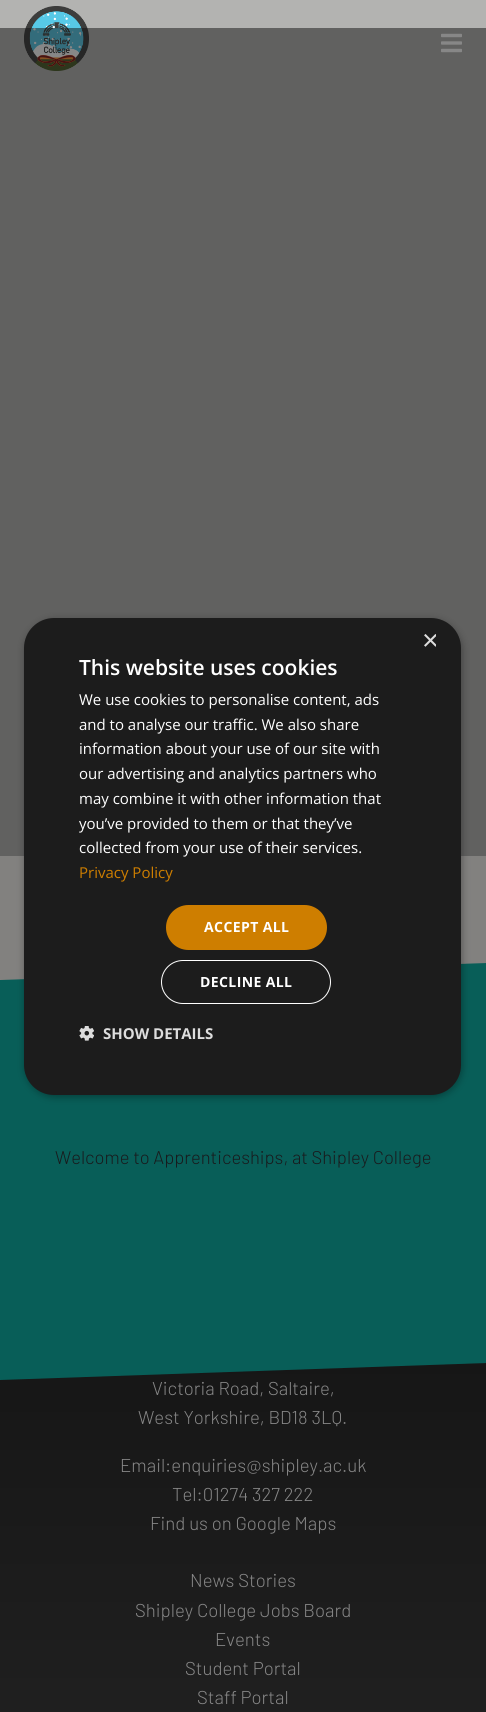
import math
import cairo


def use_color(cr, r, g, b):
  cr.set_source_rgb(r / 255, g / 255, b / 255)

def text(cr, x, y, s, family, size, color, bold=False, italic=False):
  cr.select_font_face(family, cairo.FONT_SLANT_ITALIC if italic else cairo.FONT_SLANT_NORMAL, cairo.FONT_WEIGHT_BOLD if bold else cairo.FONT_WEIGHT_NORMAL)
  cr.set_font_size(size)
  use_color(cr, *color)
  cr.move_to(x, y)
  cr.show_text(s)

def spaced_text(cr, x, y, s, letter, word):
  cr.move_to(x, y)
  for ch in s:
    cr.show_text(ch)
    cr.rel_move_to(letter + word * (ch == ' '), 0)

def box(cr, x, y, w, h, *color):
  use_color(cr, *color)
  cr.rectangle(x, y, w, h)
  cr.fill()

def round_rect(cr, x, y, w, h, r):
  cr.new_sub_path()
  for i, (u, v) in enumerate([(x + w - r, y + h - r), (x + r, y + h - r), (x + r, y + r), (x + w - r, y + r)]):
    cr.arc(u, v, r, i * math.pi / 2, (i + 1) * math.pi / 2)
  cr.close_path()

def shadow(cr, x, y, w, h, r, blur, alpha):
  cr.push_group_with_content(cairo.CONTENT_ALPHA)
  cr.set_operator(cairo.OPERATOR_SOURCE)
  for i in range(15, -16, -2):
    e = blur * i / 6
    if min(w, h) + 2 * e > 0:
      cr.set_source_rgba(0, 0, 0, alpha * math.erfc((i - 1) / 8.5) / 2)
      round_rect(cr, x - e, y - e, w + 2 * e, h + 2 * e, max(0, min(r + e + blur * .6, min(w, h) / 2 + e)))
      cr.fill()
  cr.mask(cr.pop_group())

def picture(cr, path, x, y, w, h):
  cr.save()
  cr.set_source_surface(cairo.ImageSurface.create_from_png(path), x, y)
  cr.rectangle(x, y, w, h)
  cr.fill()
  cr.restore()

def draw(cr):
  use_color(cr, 244, 243, 238)
  cr.paint()
  box(cr, 0, 0, 486, 856, 179, 179, 177)
  picture(cr, "img_01.png", 24, 6, 65, 65)
  picture(cr, "img_02.png", 441, 33, 21, 20)
  gradient = cairo.LinearGradient(243, 1210, 243, 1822)
  gradient.add_color_stop_rgba(0, 0.082, 0.082, 0.082, 1)
  gradient.add_color_stop_rgba(1, 0.208, 0.208, 0.208, 1)
  cr.set_source(gradient)
  cr.rectangle(0, 1363, 486, 349)
  cr.fill()
  use_color(cr, 0, 172, 161)
  cr.new_path()
  cr.move_to(0, 980)
  cr.line_to(486, 963)
  cr.line_to(486, 1363)
  cr.line_to(0, 1380)
  cr.close_path()
  cr.fill()
  text(cr, 55, 1164, "Welcome to Apprenticeships, at Shipley College", "Barlow Light", 18.4, (33, 37, 41))
  text(cr, 152, 1395, "Victoria Road, Saltaire,", "Barlow Light", 18.6, (255, 255, 255))
  text(cr, 138, 1424, "West Yorkshire, BD18 3LQ.", "Barlow Light", 18.6, (255, 255, 255))
  text(cr, 120, 1472, "Email:enquiries@shipley.ac.uk", "Barlow Light", 18.6, (255, 255, 255))
  text(cr, 172, 1501, "Tel:01274 327 222", "Barlow Light", 18.6, (255, 255, 255))
  text(cr, 150, 1530, "Find us on Google Maps", "Barlow Light", 18.6, (255, 255, 255))
  text(cr, 190, 1587, "News Stories", "Barlow Light", 18.6, (255, 255, 255))
  text(cr, 135, 1617, "Shipley College Jobs Board", "Barlow Light", 18.6, (255, 255, 255))
  text(cr, 215, 1646, "Events", "Barlow Light", 18.6, (255, 255, 255))
  text(cr, 185, 1675, "Student Portal", "Barlow Light", 18.6, (255, 255, 255))
  text(cr, 197, 1704, "Staff Portal", "Barlow Light", 18.6, (255, 255, 255))
  cr.set_source_rgba(0.067, 0.067, 0.067, 0.5)
  cr.rectangle(0, 28, 486, 1684)
  cr.fill()
  use_color(cr, 0, 0, 0)
  shadow(cr, 25, 620, 437, 477, 30, 4, 0.35)
  use_color(cr, 28, 28, 28)
  round_rect(cr, 24, 618, 437, 477, 30)
  cr.fill()
  cr.save()
  cr.rectangle(421, 634, 15, 15)
  cr.clip()
  text(cr, 422, 650, "×", "Liberation Sans", 29, (221, 221, 221))
  cr.restore()
  text(cr, 79, 675, "This website uses cookies", "Open Sans SemiBold", 21, (255, 255, 255))
  picture(cr, "img_03.png", 79, 1026, 15, 15)
  text(cr, 103, 1039, "SHOW DETAILS", "Open Sans", 15, (221, 221, 221), bold=True)
  round_rect(cr, 161.5, 960.5, 169, 43, 21.5)
  use_color(cr, 255, 255, 255)
  cr.set_line_width(1)
  cr.stroke()
  cr.set_font_size(14)
  spaced_text(cr, 200, 987, "DECLINE ALL", 0.4, 0)
  use_color(cr, 206, 126, 0)
  round_rect(cr, 166, 905, 161, 45, 22.5)
  cr.fill()
  use_color(cr, 255, 255, 255)
  spaced_text(cr, 204, 932, "ACCEPT ALL", 0.4, 0)
  text(cr, 79, 878, "Privacy Policy", "Open Sans", 15, (206, 126, 0))
  text(cr, 79, 853, "collected from your use of their services.", "Open Sans", 15, (255, 255, 255))
  text(cr, 79, 829, "you’ve provided to them or that they’ve", "Open Sans", 15, (255, 255, 255))
  text(cr, 79, 804, "may combine it with other information that", "Open Sans", 15, (255, 255, 255))
  text(cr, 79, 779, "our advertising and analytics partners who", "Open Sans", 15, (255, 255, 255))
  text(cr, 79, 754, "information about your use of our site with", "Open Sans", 15, (255, 255, 255))
  text(cr, 79, 730, "and to analyse our traffic. We also share", "Open Sans", 15, (255, 255, 255))
  text(cr, 79, 705, "We use cookies to personalise content, ads", "Open Sans", 15, (255, 255, 255))


surface = cairo.ImageSurface(cairo.FORMAT_RGB24, 486, 1712)
cr = cairo.Context(surface)
options = cairo.FontOptions()
options.set_hint_metrics(cairo.HINT_METRICS_OFF)
options.set_hint_style(cairo.HINT_STYLE_NONE)
cr.set_font_options(options)
cr.set_miter_limit(4)
draw(cr)
surface.write_to_png("out.png")
